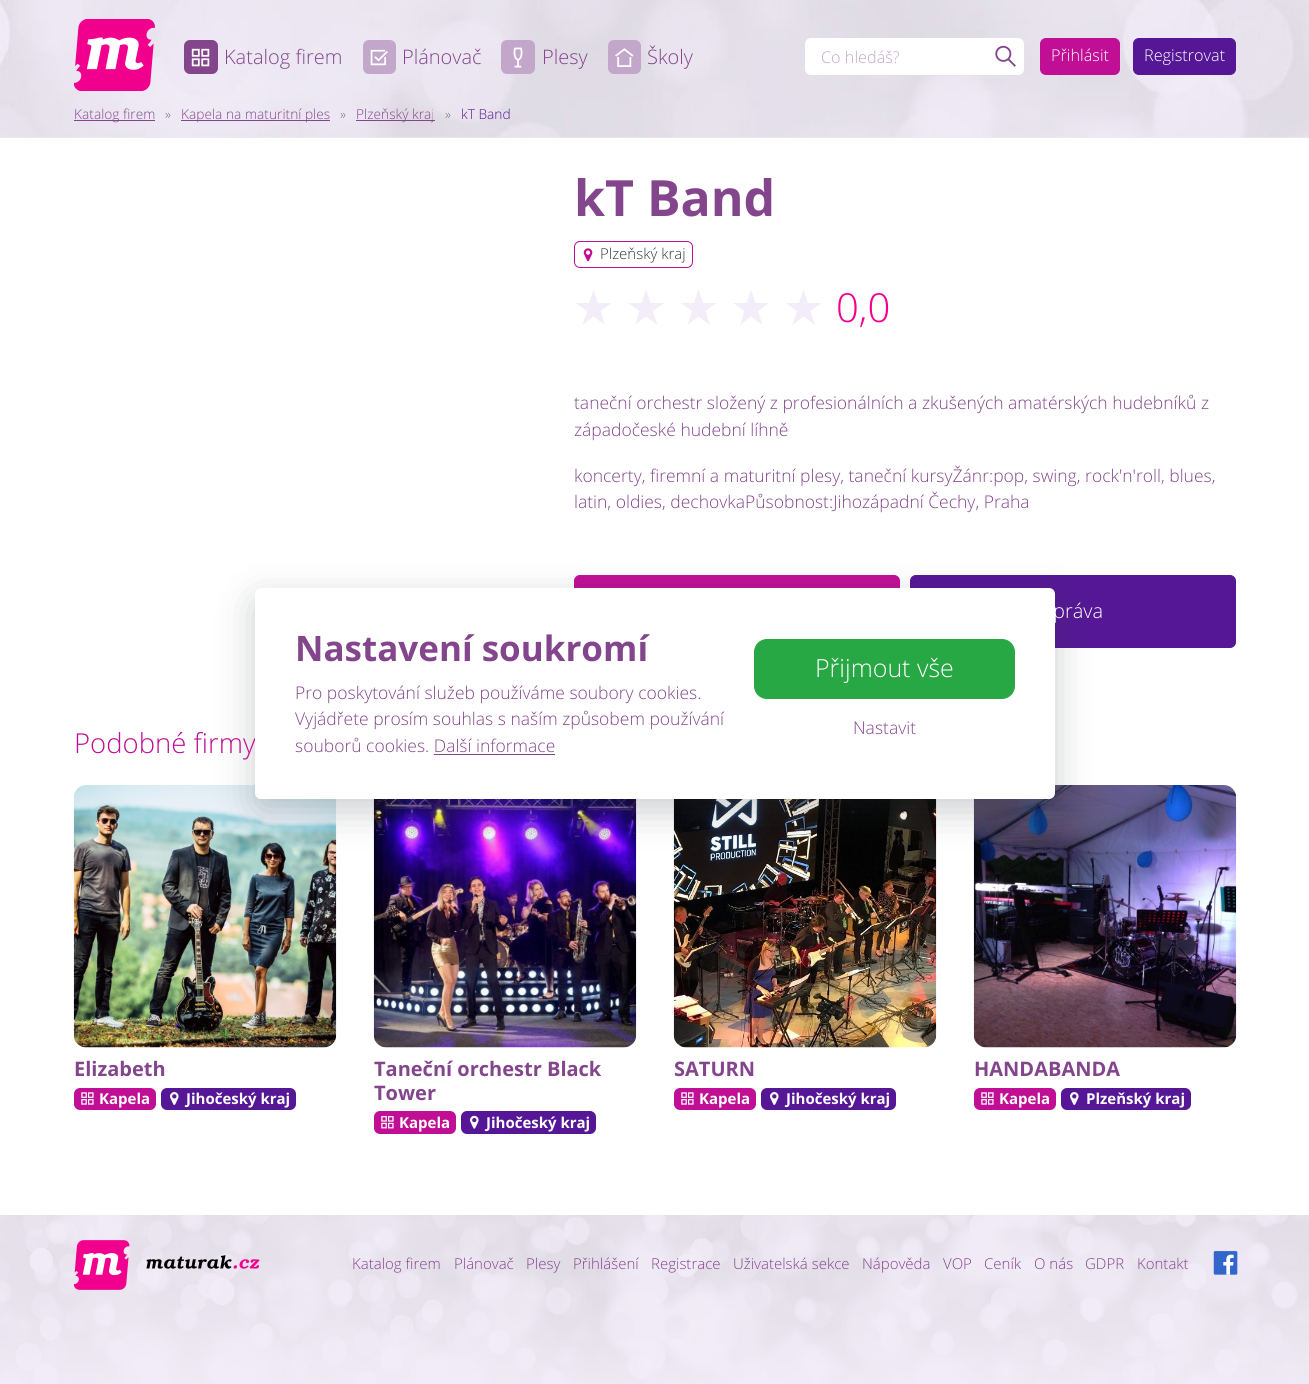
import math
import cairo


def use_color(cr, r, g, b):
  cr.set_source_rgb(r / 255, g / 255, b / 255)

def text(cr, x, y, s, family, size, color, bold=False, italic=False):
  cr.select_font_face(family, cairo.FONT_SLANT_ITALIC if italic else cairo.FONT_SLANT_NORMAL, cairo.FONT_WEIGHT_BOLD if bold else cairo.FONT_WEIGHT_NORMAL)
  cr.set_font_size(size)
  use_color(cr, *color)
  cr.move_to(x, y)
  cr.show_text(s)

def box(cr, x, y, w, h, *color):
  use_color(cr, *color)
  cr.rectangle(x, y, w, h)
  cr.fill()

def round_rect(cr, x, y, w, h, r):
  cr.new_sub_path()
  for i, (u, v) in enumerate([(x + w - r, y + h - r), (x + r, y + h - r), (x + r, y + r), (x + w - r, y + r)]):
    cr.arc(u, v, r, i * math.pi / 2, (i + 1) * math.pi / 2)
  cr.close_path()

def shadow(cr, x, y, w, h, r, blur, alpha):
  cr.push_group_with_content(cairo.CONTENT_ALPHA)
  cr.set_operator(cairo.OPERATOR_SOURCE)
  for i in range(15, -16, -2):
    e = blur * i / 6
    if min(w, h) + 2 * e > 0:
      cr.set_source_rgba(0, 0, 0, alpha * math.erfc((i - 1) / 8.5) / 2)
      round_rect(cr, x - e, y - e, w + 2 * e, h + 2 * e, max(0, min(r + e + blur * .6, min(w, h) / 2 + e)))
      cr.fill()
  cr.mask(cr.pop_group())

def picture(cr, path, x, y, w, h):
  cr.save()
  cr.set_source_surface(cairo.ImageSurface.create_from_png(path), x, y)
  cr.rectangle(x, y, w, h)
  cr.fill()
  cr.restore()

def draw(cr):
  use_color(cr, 255, 255, 255)
  cr.paint()
  box(cr, 0, 137, 1309, 1, 243, 237, 249)
  picture(cr, "img_01.png", 0, 0, 1309, 138)
  picture(cr, "img_02.png", 74, 19, 81, 72)
  use_color(cr, 131, 69, 139)
  round_rect(cr, 184, 40, 34, 34, 6)
  cr.fill()
  picture(cr, "img_03.png", 191, 48, 19, 19)
  use_color(cr, 195, 167, 202)
  round_rect(cr, 363, 40, 33, 34, 6)
  cr.fill()
  picture(cr, "img_04.png", 370, 49, 18, 17)
  round_rect(cr, 501, 40, 34, 34, 6)
  cr.fill()
  picture(cr, "img_05.png", 513, 47, 10, 21)
  round_rect(cr, 608, 40, 33, 34, 6)
  cr.fill()
  picture(cr, "img_06.png", 615, 48, 19, 19)
  use_color(cr, 192, 15, 148)
  round_rect(cr, 1040.5, 38.5, 79, 36, 5.5)
  cr.fill_preserve()
  cr.set_line_width(1)
  cr.stroke()
  use_color(cr, 85, 23, 149)
  round_rect(cr, 1133.5, 38.5, 102, 36, 5.5)
  cr.fill_preserve()
  cr.stroke()
  use_color(cr, 255, 255, 255)
  cr.new_path()
  cr.move_to(811, 38.5)
  cr.line_to(988.5, 38.5)
  cr.line_to(988.5, 74.5)
  cr.line_to(811, 74.5)
  cr.curve_to(808, 74.5, 805.5, 72, 805.5, 69)
  cr.line_to(805.5, 44)
  cr.curve_to(805.5, 41, 808, 38.5, 811, 38.5)
  cr.close_path()
  cr.fill_preserve()
  cr.stroke()
  cr.new_path()
  cr.move_to(988, 38)
  cr.line_to(1018, 38)
  cr.curve_to(1021.5, 38, 1024, 40.5, 1024, 44)
  cr.line_to(1024, 69)
  cr.curve_to(1024, 72.5, 1021.5, 75, 1018, 75)
  cr.line_to(988, 75)
  cr.close_path()
  cr.fill()
  picture(cr, "img_07.png", 995, 45, 21, 22)
  box(cr, 74, 120, 81, 1, 131, 69, 139)
  box(cr, 181, 120, 149, 1, 131, 69, 139)
  box(cr, 356, 120, 79, 1, 131, 69, 139)
  round_rect(cr, 574.5, 241.5, 118, 26, 5.5)
  use_color(cr, 192, 15, 148)
  cr.stroke()
  picture(cr, "img_08.png", 583, 248, 10, 14)
  use_color(cr, 243, 237, 249)
  cr.new_path()
  cr.move_to(600.5, 311)
  cr.line_to(605, 325)
  cr.line_to(593.5, 316.5)
  cr.line_to(582.5, 325)
  cr.line_to(587, 311)
  cr.line_to(575.5, 303)
  cr.line_to(589, 303)
  cr.line_to(593.5, 289.5)
  cr.line_to(598, 303)
  cr.line_to(611.5, 303)
  cr.close_path()
  cr.fill()
  cr.new_path()
  cr.move_to(653, 311)
  cr.line_to(657.5, 325)
  cr.line_to(646, 316.5)
  cr.line_to(635, 325)
  cr.line_to(639.5, 311)
  cr.line_to(628, 303)
  cr.line_to(641.5, 303)
  cr.line_to(646, 289.5)
  cr.line_to(650.5, 303)
  cr.line_to(664, 303)
  cr.close_path()
  cr.fill()
  cr.new_path()
  cr.move_to(705.5, 311)
  cr.line_to(710, 325)
  cr.line_to(698.5, 316.5)
  cr.line_to(687.5, 325)
  cr.line_to(692, 311)
  cr.line_to(680.5, 303)
  cr.line_to(694, 303)
  cr.line_to(698.5, 289.5)
  cr.line_to(703, 303)
  cr.line_to(716.5, 303)
  cr.close_path()
  cr.fill()
  cr.new_path()
  cr.move_to(758, 311)
  cr.line_to(762.5, 325)
  cr.line_to(751, 316.5)
  cr.line_to(740, 325)
  cr.line_to(744.5, 311)
  cr.line_to(733, 303)
  cr.line_to(746.5, 303)
  cr.line_to(751, 289.5)
  cr.line_to(755.5, 303)
  cr.line_to(769, 303)
  cr.close_path()
  cr.fill()
  cr.new_path()
  cr.move_to(810.5, 311)
  cr.line_to(815, 325)
  cr.line_to(803.5, 316.5)
  cr.line_to(792.5, 325)
  cr.line_to(797, 311)
  cr.line_to(785.5, 303)
  cr.line_to(799, 303)
  cr.line_to(803.5, 289.5)
  cr.line_to(808, 303)
  cr.line_to(821.5, 303)
  cr.close_path()
  cr.fill()
  use_color(cr, 192, 15, 148)
  round_rect(cr, 574.5, 575.5, 325, 72, 5.5)
  cr.fill_preserve()
  cr.stroke()
  use_color(cr, 85, 23, 149)
  round_rect(cr, 910.5, 575.5, 325, 72, 5.5)
  cr.fill_preserve()
  cr.stroke()
  picture(cr, "img_09.png", 73, 785, 264, 263)
  use_color(cr, 192, 15, 148)
  round_rect(cr, 74, 1088, 82, 22, 6)
  cr.fill()
  picture(cr, "img_10.png", 81, 1092, 13, 13)
  use_color(cr, 85, 23, 149)
  round_rect(cr, 161, 1088, 135, 22, 6)
  cr.fill()
  picture(cr, "img_11.png", 170, 1092, 9, 13)
  picture(cr, "img_12.png", 373, 799, 264, 249)
  use_color(cr, 192, 15, 148)
  round_rect(cr, 374, 1111, 82, 23, 6)
  cr.fill()
  picture(cr, "img_13.png", 381, 1116, 13, 13)
  use_color(cr, 85, 23, 149)
  round_rect(cr, 461, 1111, 135, 23, 6)
  cr.fill()
  picture(cr, "img_14.png", 470, 1115, 9, 14)
  picture(cr, "img_15.png", 673, 799, 264, 249)
  use_color(cr, 192, 15, 148)
  round_rect(cr, 674, 1088, 82, 22, 6)
  cr.fill()
  picture(cr, "img_10.png", 681, 1092, 13, 13)
  use_color(cr, 85, 23, 149)
  round_rect(cr, 761, 1088, 135, 22, 6)
  cr.fill()
  picture(cr, "img_11.png", 770, 1092, 9, 13)
  picture(cr, "img_16.png", 973, 785, 264, 263)
  use_color(cr, 192, 15, 148)
  round_rect(cr, 974, 1088, 82, 22, 6)
  cr.fill()
  picture(cr, "img_10.png", 981, 1092, 13, 13)
  use_color(cr, 85, 23, 149)
  round_rect(cr, 1061, 1088, 130, 22, 6)
  cr.fill()
  picture(cr, "img_11.png", 1070, 1092, 9, 13)
  use_color(cr, 52, 58, 64)
  shadow(cr, 255, 600, 800, 211, 6, 19, 0.25)
  picture(cr, "img_17.png", 0, 1215, 1309, 169)
  picture(cr, "img_18.png", 74, 1240, 186, 50)
  box(cr, 1214, 1251, 22, 23, 255, 255, 255)
  picture(cr, "img_19.png", 1213, 1251, 25, 24)
  text(cr, 224, 64, "Katalog firem", "Open Sans Light", 20, (131, 69, 139))
  text(cr, 402, 64, "Plánovač", "Open Sans Light", 20, (131, 69, 139))
  text(cr, 542, 64, "Plesy", "Open Sans Light", 20, (131, 69, 139))
  text(cr, 647, 64, "Školy", "Open Sans Light", 20, (131, 69, 139))
  text(cr, 1051, 61, "Přihlásit", "Open Sans Light", 16.25, (255, 255, 255))
  text(cr, 1144, 61, "Registrovat", "Open Sans Light", 16.25, (255, 255, 255))
  text(cr, 821, 63, "Co hledáš?", "Open Sans Light", 16.25, (195, 167, 202))
  text(cr, 74, 119, "Katalog firem", "Open Sans Light", 13.75, (131, 69, 139))
  text(cr, 165, 119, "»", "Open Sans Light", 13.75, (108, 117, 125))
  text(cr, 181, 119, "Kapela na maturitní ples", "Open Sans Light", 13.75, (131, 69, 139))
  text(cr, 340, 119, "»", "Open Sans Light", 13.75, (108, 117, 125))
  text(cr, 356, 119, "Plzeňský kraj", "Open Sans Light", 13.75, (131, 69, 139))
  text(cr, 445, 119, "»", "Open Sans Light", 13.75, (108, 117, 125))
  text(cr, 461, 119, "kT Band", "Open Sans Light", 13.75, (85, 23, 149))
  text(cr, 574, 216, "kT Band", "Open Sans", 50, (131, 69, 139), bold=True)
  text(cr, 600, 259, "Plzeňský kraj", "Open Sans Light", 15, (52, 58, 64))
  text(cr, 836, 322, "0,0", "Open Sans Light", 40, (241, 0, 142))
  text(cr, 574, 409, "taneční orchestr složený z profesionálních a zkušených amatérských hudebníků z", "Open Sans Light", 17.5, (131, 69, 139))
  text(cr, 574, 436, "západočeské hudební líhně", "Open Sans Light", 17.5, (131, 69, 139))
  text(cr, 574, 482, "koncerty, firemní a maturitní plesy, taneční kursyŽánr:pop, swing, rock'n'roll, blues,", "Open Sans Light", 17.5, (131, 69, 139))
  text(cr, 574, 508, "latin, oldies, dechovkaPůsobnost:Jihozápadní Čechy, Praha", "Open Sans Light", 17.5, (131, 69, 139))
  text(cr, 1053, 618, "práva", "Open Sans Light", 20, (255, 255, 255))
  text(cr, 74, 753, "Podobné firmy", "Open Sans Light", 27.5, (192, 15, 148))
  text(cr, 74, 1076, "Elizabeth", "Open Sans", 20, (131, 69, 139), bold=True)
  text(cr, 99, 1104, "Kapela", "Open Sans", 15, (255, 255, 255), bold=True)
  text(cr, 186, 1104, "Jihočeský kraj", "Open Sans", 15, (255, 255, 255), bold=True)
  text(cr, 374, 1076, "Taneční orchestr Black", "Open Sans", 20, (131, 69, 139), bold=True)
  text(cr, 374, 1100, "Tower", "Open Sans", 20, (131, 69, 139), bold=True)
  text(cr, 399, 1128, "Kapela", "Open Sans", 15, (255, 255, 255), bold=True)
  text(cr, 486, 1128, "Jihočeský kraj", "Open Sans", 15, (255, 255, 255), bold=True)
  text(cr, 674, 1076, "SATURN", "Open Sans", 20, (131, 69, 139), bold=True)
  text(cr, 699, 1104, "Kapela", "Open Sans", 15, (255, 255, 255), bold=True)
  text(cr, 786, 1104, "Jihočeský kraj", "Open Sans", 15, (255, 255, 255), bold=True)
  text(cr, 974, 1076, "HANDABANDA", "Open Sans", 20, (131, 69, 139), bold=True)
  text(cr, 999, 1104, "Kapela", "Open Sans", 15, (255, 255, 255), bold=True)
  text(cr, 1086, 1104, "Plzeňský kraj", "Open Sans", 15, (255, 255, 255), bold=True)
  round_rect(cr, 255, 588, 800, 211, 6)
  cr.fill()
  text(cr, 295, 661, "Nastavení soukromí", "Open Sans", 35, (131, 69, 139), bold=True)
  text(cr, 295, 699, "Pro poskytování služeb používáme soubory cookies.", "Open Sans Light", 17.5, (131, 69, 139))
  text(cr, 295, 725, "Vyjádřete prosím souhlas s naším způsobem používání", "Open Sans Light", 17.5, (131, 69, 139))
  text(cr, 295, 752, "souborů cookies. Další informace", "Open Sans Light", 17.5, (131, 69, 139))
  box(cr, 434, 754, 121, 1, 131, 69, 139)
  use_color(cr, 40, 167, 69)
  round_rect(cr, 754.5, 639.5, 260, 59, 12.5)
  cr.fill_preserve()
  cr.stroke()
  text(cr, 815, 677, "Přijmout vše", "Open Sans Light", 25, (255, 255, 255))
  text(cr, 853, 734, "Nastavit", "Open Sans Light", 17.5, (131, 69, 139))
  text(cr, 352, 1269, "Katalog firem", "Open Sans Light", 15, (131, 69, 139))
  text(cr, 454, 1269, "Plánovač", "Open Sans Light", 15, (131, 69, 139))
  text(cr, 526, 1269, "Plesy", "Open Sans Light", 15, (131, 69, 139))
  text(cr, 573, 1269, "Přihlášení", "Open Sans Light", 15, (131, 69, 139))
  text(cr, 651, 1269, "Registrace", "Open Sans Light", 15, (131, 69, 139))
  text(cr, 733, 1269, "Uživatelská sekce", "Open Sans Light", 15, (131, 69, 139))
  text(cr, 862, 1269, "Nápověda", "Open Sans Light", 15, (131, 69, 139))
  text(cr, 943, 1269, "VOP", "Open Sans Light", 15, (131, 69, 139))
  text(cr, 984, 1269, "Ceník", "Open Sans Light", 15, (131, 69, 139))
  text(cr, 1034, 1269, "O nás", "Open Sans Light", 15, (131, 69, 139))
  text(cr, 1085, 1269, "GDPR", "Open Sans Light", 15, (131, 69, 139))
  text(cr, 1137, 1269, "Kontakt", "Open Sans Light", 15, (131, 69, 139))


surface = cairo.ImageSurface(cairo.FORMAT_RGB24, 1309, 1384)
cr = cairo.Context(surface)
options = cairo.FontOptions()
options.set_hint_metrics(cairo.HINT_METRICS_OFF)
options.set_hint_style(cairo.HINT_STYLE_NONE)
cr.set_font_options(options)
cr.set_miter_limit(4)
draw(cr)
surface.write_to_png("out.png")
